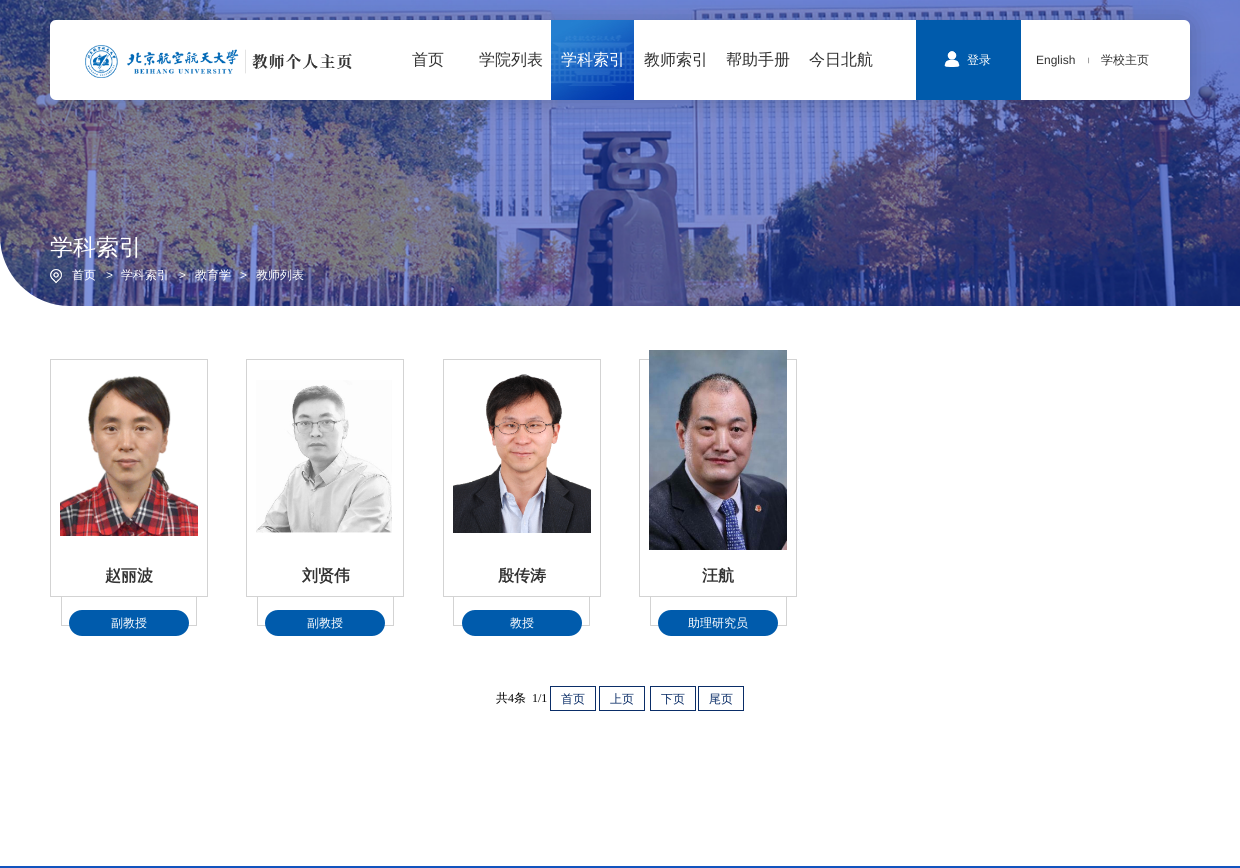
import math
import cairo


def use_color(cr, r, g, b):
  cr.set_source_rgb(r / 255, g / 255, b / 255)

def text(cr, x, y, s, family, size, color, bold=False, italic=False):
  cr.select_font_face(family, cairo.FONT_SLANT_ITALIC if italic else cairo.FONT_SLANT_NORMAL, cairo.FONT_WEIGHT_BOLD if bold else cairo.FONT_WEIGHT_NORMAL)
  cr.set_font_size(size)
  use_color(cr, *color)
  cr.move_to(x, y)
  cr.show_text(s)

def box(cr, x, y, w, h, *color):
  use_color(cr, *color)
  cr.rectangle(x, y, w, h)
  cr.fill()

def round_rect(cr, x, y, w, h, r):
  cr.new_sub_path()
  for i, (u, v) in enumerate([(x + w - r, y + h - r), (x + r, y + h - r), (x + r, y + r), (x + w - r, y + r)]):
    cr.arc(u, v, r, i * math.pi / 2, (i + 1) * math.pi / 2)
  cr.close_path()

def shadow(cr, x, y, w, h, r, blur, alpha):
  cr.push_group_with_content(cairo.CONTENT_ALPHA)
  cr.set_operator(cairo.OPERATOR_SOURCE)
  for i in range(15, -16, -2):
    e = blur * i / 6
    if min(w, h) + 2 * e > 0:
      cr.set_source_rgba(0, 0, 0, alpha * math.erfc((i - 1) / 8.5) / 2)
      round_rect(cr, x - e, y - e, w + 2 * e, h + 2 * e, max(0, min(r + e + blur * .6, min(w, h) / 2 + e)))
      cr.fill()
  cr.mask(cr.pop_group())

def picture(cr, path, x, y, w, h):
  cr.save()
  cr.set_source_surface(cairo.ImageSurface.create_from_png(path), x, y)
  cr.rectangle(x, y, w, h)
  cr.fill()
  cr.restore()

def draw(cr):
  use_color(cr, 255, 255, 255)
  cr.paint()
  picture(cr, "img_04.png", 0, 0, 1240, 306)
  use_color(cr, 44, 53, 72)
  shadow(cr, 50, 21, 1140, 80, 6, 13.5, 0.33)
  use_color(cr, 255, 255, 255)
  round_rect(cr, 50, 20, 1140, 80, 6)
  cr.fill()
  picture(cr, "img_01.png", 85, 45, 267, 33)
  picture(cr, "img_02.png", 551, 20, 83, 80)
  box(cr, 916, 20, 105, 80, 0, 91, 172)
  picture(cr, "img_03.png", 944, 51, 16, 16)
  picture(cr, "img_05.png", 50, 269, 12, 14)
  cr.rectangle(50.5, 359.5, 157, 237)
  use_color(cr, 211, 211, 211)
  cr.set_line_width(1)
  cr.stroke()
  picture(cr, "img_06.png", 60, 376, 138, 160)
  box(cr, 196, 597, 1, 29, 211, 211, 211)
  box(cr, 61, 625, 136, 1, 211, 211, 211)
  box(cr, 61, 597, 1, 29, 211, 211, 211)
  use_color(cr, 0, 91, 172)
  round_rect(cr, 69, 610, 120, 26, 13)
  cr.fill()
  cr.rectangle(246.5, 359.5, 157, 237)
  use_color(cr, 211, 211, 211)
  cr.stroke()
  picture(cr, "img_07.png", 256, 380, 136, 153)
  box(cr, 393, 597, 1, 29, 211, 211, 211)
  box(cr, 257, 625, 137, 1, 211, 211, 211)
  box(cr, 257, 597, 1, 29, 211, 211, 211)
  use_color(cr, 0, 91, 172)
  round_rect(cr, 265, 610, 120, 26, 13)
  cr.fill()
  cr.rectangle(443.5, 359.5, 157, 237)
  use_color(cr, 211, 211, 211)
  cr.stroke()
  picture(cr, "img_08.png", 453, 374, 138, 159)
  box(cr, 589, 597, 1, 29, 211, 211, 211)
  box(cr, 453, 625, 137, 1, 211, 211, 211)
  box(cr, 453, 597, 1, 29, 211, 211, 211)
  use_color(cr, 0, 91, 172)
  round_rect(cr, 462, 610, 120, 26, 13)
  cr.fill()
  cr.rectangle(639.5, 359.5, 157, 237)
  use_color(cr, 211, 211, 211)
  cr.stroke()
  picture(cr, "img_09.png", 649, 350, 138, 200)
  box(cr, 786, 597, 1, 29, 211, 211, 211)
  box(cr, 650, 625, 137, 1, 211, 211, 211)
  box(cr, 650, 597, 1, 29, 211, 211, 211)
  use_color(cr, 0, 91, 172)
  round_rect(cr, 658, 610, 120, 26, 13)
  cr.fill()
  cr.rectangle(550.5, 686.5, 45, 24)
  use_color(cr, 10, 45, 103)
  cr.stroke()
  cr.rectangle(599.5, 686.5, 45, 24)
  cr.stroke()
  cr.rectangle(650.5, 686.5, 45, 24)
  cr.stroke()
  cr.rectangle(698.5, 686.5, 45, 24)
  cr.stroke()
  box(cr, 0, 866, 1240, 2, 18, 83, 190)
  text(cr, 412, 65, "首页", "WenQuanYi Zen Hei Medium", 16, (50, 50, 50))
  text(cr, 479, 65, "学院列表", "WenQuanYi Zen Hei Medium", 16, (50, 50, 50))
  text(cr, 561, 65, "学科索引", "WenQuanYi Zen Hei Medium", 16, (255, 255, 255))
  text(cr, 644, 65, "教师索引", "WenQuanYi Zen Hei Medium", 16, (50, 50, 50))
  text(cr, 726, 65, "帮助手册", "WenQuanYi Zen Hei Medium", 16, (50, 50, 50))
  text(cr, 809, 65, "今日北航", "WenQuanYi Zen Hei Medium", 16, (50, 50, 50))
  text(cr, 967, 64, "登录", "WenQuanYi Zen Hei Medium", 12, (255, 255, 255))
  text(cr, 1036, 64, "English", "Liberation Sans", 12, (50, 50, 50))
  text(cr, 1088, 62, "|", "Liberation Sans", 6, (50, 50, 50))
  text(cr, 1101, 64, "学校主页", "WenQuanYi Zen Hei Medium", 12, (50, 50, 50))
  text(cr, 50, 255, "学科索引", "WenQuanYi Zen Hei Medium", 23, (255, 255, 255))
  text(cr, 72, 279, "首页", "WenQuanYi Zen Hei Medium", 12, (255, 255, 255))
  text(cr, 106, 279, ">", "Liberation Sans", 12, (255, 255, 255))
  text(cr, 121, 279, "学科索引", "WenQuanYi Zen Hei Medium", 12, (255, 255, 255))
  text(cr, 179, 279, ">", "Liberation Sans", 12, (255, 255, 255))
  text(cr, 195, 279, "教育学", "WenQuanYi Zen Hei Medium", 12, (255, 255, 255))
  text(cr, 240, 279, ">", "Liberation Sans", 12, (255, 255, 255))
  text(cr, 256, 279, "教师列表", "WenQuanYi Zen Hei Medium", 12, (255, 255, 255))
  text(cr, 105, 581, "赵丽波", "WenQuanYi Zen Hei", 16, (50, 50, 50), bold=True)
  text(cr, 111, 627, "副教授", "WenQuanYi Zen Hei Medium", 12, (255, 255, 255))
  text(cr, 302, 581, "刘贤伟", "WenQuanYi Zen Hei", 16, (50, 50, 50), bold=True)
  text(cr, 307, 627, "副教授", "WenQuanYi Zen Hei Medium", 12, (255, 255, 255))
  text(cr, 498, 581, "殷传涛", "WenQuanYi Zen Hei", 16, (50, 50, 50), bold=True)
  text(cr, 510, 627, "教授", "WenQuanYi Zen Hei Medium", 12, (255, 255, 255))
  text(cr, 702, 581, "汪航", "WenQuanYi Zen Hei", 16, (50, 50, 50), bold=True)
  text(cr, 688, 627, "助理研究员", "WenQuanYi Zen Hei Medium", 12, (255, 255, 255))
  text(cr, 496, 702, "共", "WenQuanYi Zen Hei Medium", 12, (0, 0, 0))
  text(cr, 508, 702, "4", "Liberation Serif", 12, (0, 0, 0))
  text(cr, 514, 702, "条", "WenQuanYi Zen Hei Medium", 12, (0, 0, 0))
  text(cr, 532, 702, "1/1", "Liberation Serif", 12, (0, 0, 0))
  text(cr, 561, 703, "首页", "WenQuanYi Zen Hei Medium", 12, (10, 45, 103))
  text(cr, 610, 703, "上页", "WenQuanYi Zen Hei Medium", 12, (10, 45, 103))
  text(cr, 661, 703, "下页", "WenQuanYi Zen Hei Medium", 12, (10, 45, 103))
  text(cr, 709, 703, "尾页", "WenQuanYi Zen Hei Medium", 12, (10, 45, 103))


surface = cairo.ImageSurface(cairo.FORMAT_RGB24, 1240, 868)
cr = cairo.Context(surface)
options = cairo.FontOptions()
options.set_hint_metrics(cairo.HINT_METRICS_OFF)
options.set_hint_style(cairo.HINT_STYLE_NONE)
cr.set_font_options(options)
cr.set_miter_limit(4)
draw(cr)
surface.write_to_png("out.png")
